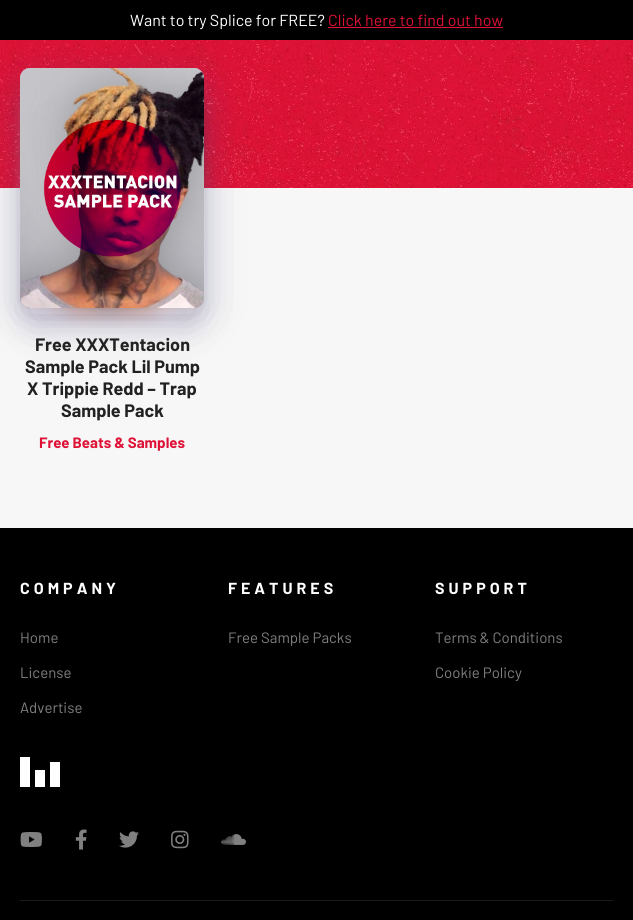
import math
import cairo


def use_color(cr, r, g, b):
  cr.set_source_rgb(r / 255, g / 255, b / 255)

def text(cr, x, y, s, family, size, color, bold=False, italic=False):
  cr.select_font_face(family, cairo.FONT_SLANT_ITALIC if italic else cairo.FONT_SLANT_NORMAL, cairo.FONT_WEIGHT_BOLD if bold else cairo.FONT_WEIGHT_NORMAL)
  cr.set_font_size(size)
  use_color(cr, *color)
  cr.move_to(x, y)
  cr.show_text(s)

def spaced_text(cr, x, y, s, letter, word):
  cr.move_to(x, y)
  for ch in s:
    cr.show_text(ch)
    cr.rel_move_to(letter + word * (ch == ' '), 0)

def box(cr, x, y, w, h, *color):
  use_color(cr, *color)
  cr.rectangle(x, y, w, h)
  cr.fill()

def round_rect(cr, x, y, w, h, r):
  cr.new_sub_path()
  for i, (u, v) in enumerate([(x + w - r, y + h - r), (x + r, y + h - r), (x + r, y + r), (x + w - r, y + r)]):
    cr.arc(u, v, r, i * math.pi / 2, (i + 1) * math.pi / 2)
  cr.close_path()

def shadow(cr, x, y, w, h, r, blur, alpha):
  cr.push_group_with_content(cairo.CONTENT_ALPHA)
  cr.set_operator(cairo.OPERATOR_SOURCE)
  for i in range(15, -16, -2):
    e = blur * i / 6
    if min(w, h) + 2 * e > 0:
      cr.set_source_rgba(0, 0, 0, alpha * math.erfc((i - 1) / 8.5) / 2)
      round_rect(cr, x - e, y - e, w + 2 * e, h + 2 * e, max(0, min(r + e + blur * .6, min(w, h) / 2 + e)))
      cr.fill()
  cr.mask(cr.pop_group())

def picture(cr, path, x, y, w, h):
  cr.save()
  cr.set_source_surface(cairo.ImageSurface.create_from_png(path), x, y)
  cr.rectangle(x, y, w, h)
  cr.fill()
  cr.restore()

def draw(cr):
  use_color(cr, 247, 247, 247)
  cr.paint()
  picture(cr, "img_01.png", 0, 40, 633, 148)
  picture(cr, "img_02.png", 20, 68, 184, 240)
  picture(cr, "img_05.png", 20, 68, 184, 240)
  cr.save()
  cr.set_fill_rule(cairo.FILL_RULE_EVEN_ODD)
  cr.new_path()
  cr.move_to(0, 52)
  cr.line_to(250, 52)
  cr.line_to(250, 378)
  cr.line_to(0, 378)
  cr.close_path()
  cr.move_to(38, 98)
  cr.line_to(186, 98)
  cr.curve_to(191, 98, 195, 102, 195, 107)
  cr.line_to(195, 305)
  cr.curve_to(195, 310, 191, 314, 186, 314)
  cr.line_to(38, 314)
  cr.curve_to(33, 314, 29, 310, 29, 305)
  cr.line_to(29, 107)
  cr.curve_to(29, 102, 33, 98, 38, 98)
  cr.close_path()
  cr.clip()
  use_color(cr, 76, 70, 124)
  shadow(cr, 29, 107, 166, 216, 9, 18, 0.21)
  cr.restore()
  picture(cr, "img_04.png", 14, 95, 196, 234)
  use_color(cr, 76, 70, 124)
  shadow(cr, 20, 78, 184, 240, 10, 20, 0.3)
  box(cr, 0, 0, 633, 40, 0, 0, 0)
  box(cr, 328, 27, 175, 1, 222, 17, 54)
  picture(cr, "img_03.png", 20, 68, 184, 240)
  box(cr, 0, 528, 633, 392, 0, 0, 0)
  use_color(cr, 255, 255, 255)
  cr.set_fill_rule(cairo.FILL_RULE_EVEN_ODD)
  cr.new_path()
  cr.move_to(30, 757)
  cr.line_to(30, 787)
  cr.line_to(20, 787)
  cr.line_to(20, 757)
  cr.close_path()
  cr.move_to(45, 770)
  cr.line_to(45, 787)
  cr.line_to(35, 787)
  cr.line_to(35, 770)
  cr.close_path()
  cr.move_to(60, 762)
  cr.line_to(60, 787)
  cr.line_to(50, 787)
  cr.line_to(50, 762)
  cr.close_path()
  cr.fill()
  picture(cr, "img_06.png", 20, 832, 22, 15)
  picture(cr, "img_07.png", 75, 829, 12, 21)
  picture(cr, "img_08.png", 119, 831, 20, 17)
  picture(cr, "img_09.png", 171, 830, 18, 19)
  picture(cr, "img_10.png", 221, 834, 25, 11)
  box(cr, 20, 900, 593, 1, 26, 26, 26)
  text(cr, 130, 26, "Want to try Splice for FREE?", "Barlow", 16, (255, 255, 255))
  text(cr, 328, 26, "Click here to find out how", "Barlow", 16, (222, 17, 54))
  text(cr, 35, 351, "Free XXXTentacion", "Barlow", 18, (34, 34, 34), bold=True)
  text(cr, 25, 373, "Sample Pack Lil Pump", "Barlow", 18, (34, 34, 34), bold=True)
  text(cr, 27, 395, "X Trippie Redd – Trap", "Barlow", 18, (34, 34, 34), bold=True)
  text(cr, 61, 417, "Sample Pack", "Barlow", 18, (34, 34, 34), bold=True)
  text(cr, 39, 448, "Free Beats & Samples", "Barlow", 15, (222, 17, 54), bold=True)
  cr.set_font_size(16)
  use_color(cr, 255, 255, 255)
  spaced_text(cr, 20, 594, "COMPANY", 4, 0)
  text(cr, 20, 643, "Home", "Barlow", 15, (128, 128, 128))
  text(cr, 20, 678, "License", "Barlow", 15, (128, 128, 128))
  text(cr, 20, 713, "Advertise", "Barlow", 15, (128, 128, 128))
  cr.select_font_face("Barlow", cairo.FONT_SLANT_NORMAL, cairo.FONT_WEIGHT_BOLD)
  cr.set_font_size(16)
  use_color(cr, 255, 255, 255)
  spaced_text(cr, 228, 594, "FEATURES", 4, 0)
  text(cr, 228, 643, "Free Sample Packs", "Barlow", 15, (128, 128, 128))
  cr.select_font_face("Barlow", cairo.FONT_SLANT_NORMAL, cairo.FONT_WEIGHT_BOLD)
  cr.set_font_size(16)
  use_color(cr, 255, 255, 255)
  spaced_text(cr, 435, 594, "SUPPORT", 4, 0)
  text(cr, 435, 643, "Terms & Conditions", "Barlow", 15, (128, 128, 128))
  text(cr, 435, 678, "Cookie Policy", "Barlow", 15, (128, 128, 128))


surface = cairo.ImageSurface(cairo.FORMAT_RGB24, 633, 920)
cr = cairo.Context(surface)
options = cairo.FontOptions()
options.set_hint_metrics(cairo.HINT_METRICS_OFF)
options.set_hint_style(cairo.HINT_STYLE_NONE)
cr.set_font_options(options)
cr.set_miter_limit(4)
draw(cr)
surface.write_to_png("out.png")
